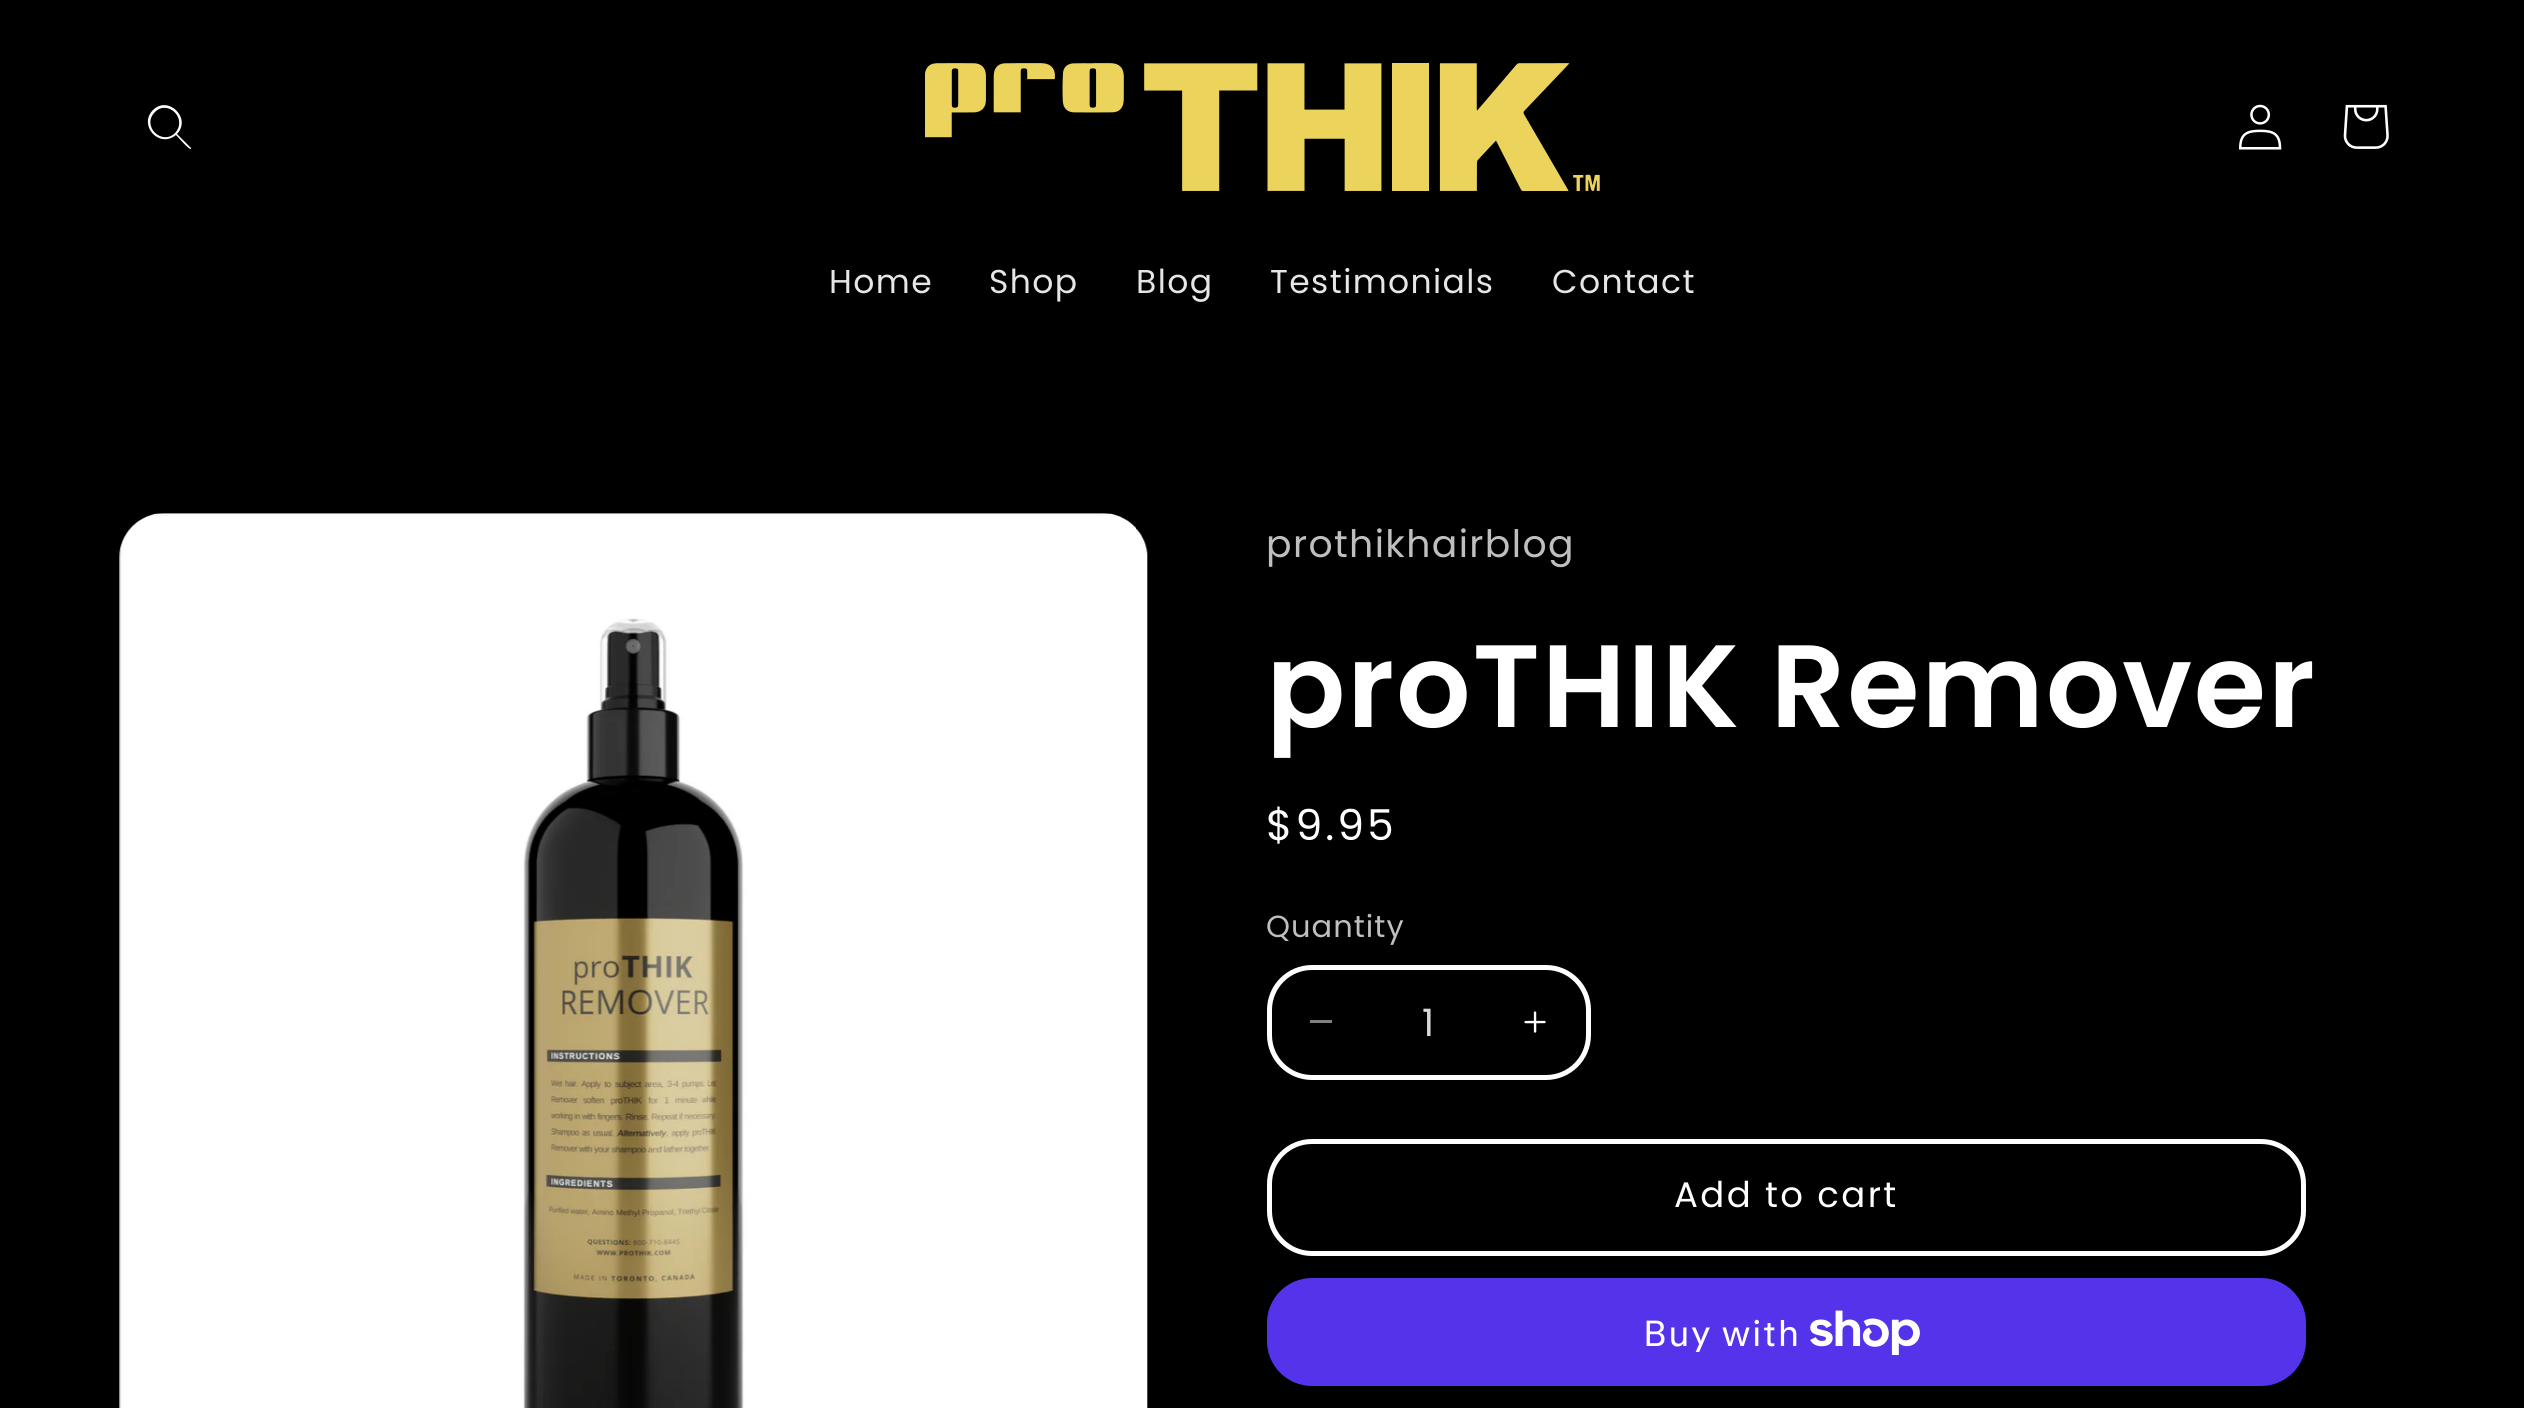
import math
import cairo


def use_color(cr, r, g, b):
  cr.set_source_rgb(r / 255, g / 255, b / 255)

def text(cr, x, y, s, family, size, color, bold=False, italic=False):
  cr.select_font_face(family, cairo.FONT_SLANT_ITALIC if italic else cairo.FONT_SLANT_NORMAL, cairo.FONT_WEIGHT_BOLD if bold else cairo.FONT_WEIGHT_NORMAL)
  cr.set_font_size(size)
  use_color(cr, *color)
  cr.move_to(x, y)
  cr.show_text(s)

def spaced_text(cr, x, y, s, letter, word):
  cr.move_to(x, y)
  for ch in s:
    cr.show_text(ch)
    cr.rel_move_to(letter + word * (ch == ' '), 0)

def box(cr, x, y, w, h, *color):
  use_color(cr, *color)
  cr.rectangle(x, y, w, h)
  cr.fill()

def round_rect(cr, x, y, w, h, r):
  cr.new_sub_path()
  for i, (u, v) in enumerate([(x + w - r, y + h - r), (x + r, y + h - r), (x + r, y + r), (x + w - r, y + r)]):
    cr.arc(u, v, r, i * math.pi / 2, (i + 1) * math.pi / 2)
  cr.close_path()

def picture(cr, path, x, y, w, h):
  cr.save()
  cr.set_source_surface(cairo.ImageSurface.create_from_png(path), x, y)
  cr.rectangle(x, y, w, h)
  cr.fill()
  cr.restore()

def draw(cr):
  use_color(cr, 0, 0, 0)
  cr.paint()
  use_color(cr, 255, 255, 255)
  cr.set_fill_rule(cairo.FILL_RULE_EVEN_ODD)
  cr.new_path()
  cr.move_to(175, 133)
  cr.curve_to(162, 146, 141, 126, 155, 112)
  cr.curve_to(168, 99, 188, 119, 175, 133)
  cr.close_path()
  cr.move_to(176, 135)
  cr.curve_to(159, 149, 138, 125, 153, 110)
  cr.curve_to(168, 95, 192, 118, 177, 134)
  cr.line_to(191, 148)
  cr.line_to(191, 149)
  cr.curve_to(189, 150, 178, 137, 176, 135)
  cr.close_path()
  cr.fill()
  picture(cr, "img_01.png", 925, 63, 675, 128)
  picture(cr, "img_02.png", 2239, 104, 43, 46)
  picture(cr, "img_03.png", 2343, 104, 46, 45)
  picture(cr, "img_04.png", 119, 513, 1029, 895)
  box(cr, 1310, 1020, 22, 3, 128, 128, 128)
  picture(cr, "img_05.png", 1524, 1011, 22, 22)
  round_rect(cr, 1269.5, 967.5, 319, 110, 42.5)
  use_color(cr, 255, 255, 255)
  cr.set_line_width(5)
  cr.stroke()
  round_rect(cr, 1269.5, 1141.5, 1034, 112, 42.5)
  cr.stroke()
  use_color(cr, 84, 51, 235)
  round_rect(cr, 1267, 1278, 1039, 108, 45)
  cr.fill()
  picture(cr, "img_06.png", 1810, 1310, 110, 45)
  cr.select_font_face("Poppins")
  cr.set_font_size(33)
  use_color(cr, 230, 230, 230)
  spaced_text(cr, 829, 293, "Home", 1.4, 0)
  spaced_text(cr, 989, 293, "Shop", 1.4, 0)
  spaced_text(cr, 1136, 293, "Blog", 1.4, 0)
  spaced_text(cr, 1270, 293, "Testimonials", 1.4, 0)
  spaced_text(cr, 1552, 293, "Contact", 1.4, 0)
  cr.set_font_size(37.75)
  use_color(cr, 191, 191, 191)
  spaced_text(cr, 1266, 557, "prothikhairblog", 1.4, 0)
  cr.select_font_face("Poppins SemiBold")
  cr.set_font_size(117)
  use_color(cr, 255, 255, 255)
  spaced_text(cr, 1266, 727, "proTHIK Remover", 1.75, 0)
  cr.select_font_face("Poppins")
  cr.set_font_size(42.5)
  spaced_text(cr, 1266, 840, "$9.95", 3, 0)
  cr.set_font_size(30.5)
  use_color(cr, 191, 191, 191)
  spaced_text(cr, 1266, 937, "Quantity", 1, 0)
  text(cr, 1422, 1036, "1", "Poppins", 37.75, (217, 217, 217))
  cr.set_font_size(35.5)
  use_color(cr, 255, 255, 255)
  spaced_text(cr, 1674, 1207, "Add to cart", 2.4, 0)
  cr.select_font_face("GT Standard")
  cr.set_font_size(36)
  spaced_text(cr, 1643, 1346, "Buy with", 1.4, 0)


surface = cairo.ImageSurface(cairo.FORMAT_RGB24, 2524, 1408)
cr = cairo.Context(surface)
options = cairo.FontOptions()
options.set_hint_metrics(cairo.HINT_METRICS_OFF)
options.set_hint_style(cairo.HINT_STYLE_NONE)
cr.set_font_options(options)
cr.set_miter_limit(4)
draw(cr)
surface.write_to_png("out.png")
